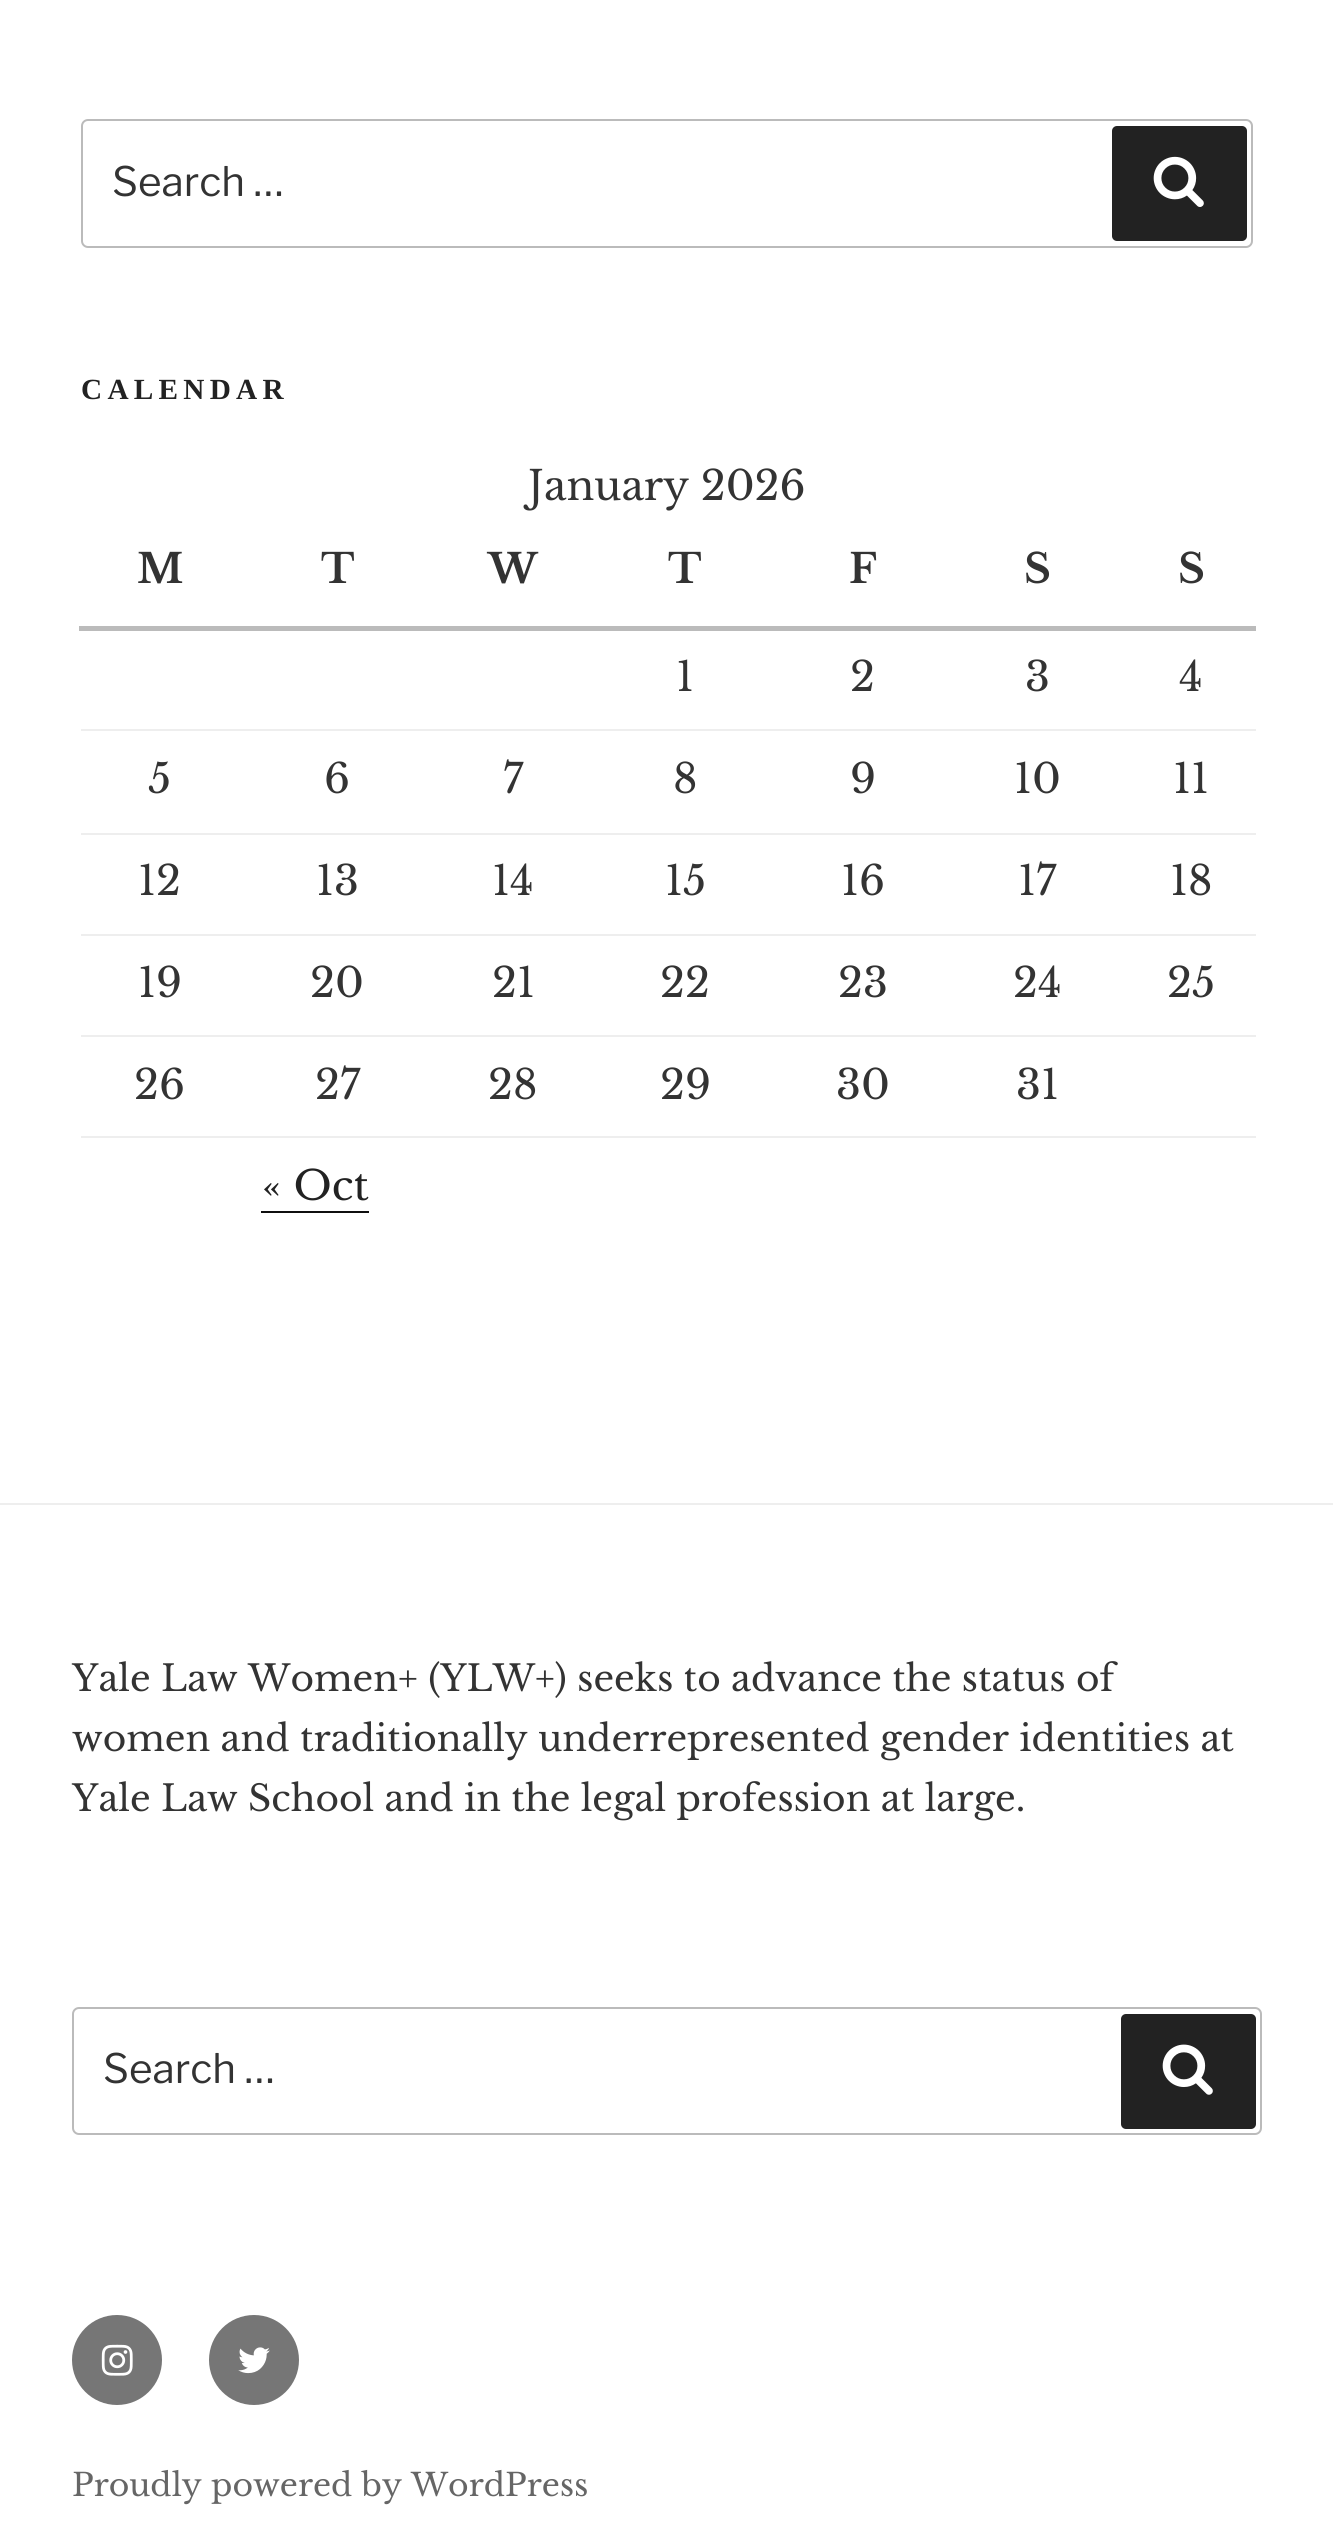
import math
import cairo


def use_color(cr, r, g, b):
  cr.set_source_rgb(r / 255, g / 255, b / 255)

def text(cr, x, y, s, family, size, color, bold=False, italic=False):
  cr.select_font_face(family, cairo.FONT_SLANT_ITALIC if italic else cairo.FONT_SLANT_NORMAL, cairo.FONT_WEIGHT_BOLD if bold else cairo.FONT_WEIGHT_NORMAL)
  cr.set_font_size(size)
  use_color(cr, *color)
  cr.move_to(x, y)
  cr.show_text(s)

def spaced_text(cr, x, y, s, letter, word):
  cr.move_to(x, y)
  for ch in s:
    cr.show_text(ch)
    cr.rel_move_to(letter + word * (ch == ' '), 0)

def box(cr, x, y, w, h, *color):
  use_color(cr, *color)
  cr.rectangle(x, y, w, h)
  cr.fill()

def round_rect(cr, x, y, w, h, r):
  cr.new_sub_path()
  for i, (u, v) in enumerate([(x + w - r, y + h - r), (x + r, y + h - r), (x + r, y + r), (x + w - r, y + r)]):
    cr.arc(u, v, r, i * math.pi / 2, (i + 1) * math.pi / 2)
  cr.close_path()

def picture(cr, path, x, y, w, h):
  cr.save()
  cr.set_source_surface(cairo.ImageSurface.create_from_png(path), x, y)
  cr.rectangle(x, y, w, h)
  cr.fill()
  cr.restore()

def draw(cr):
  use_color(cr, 255, 255, 255)
  cr.paint()
  round_rect(cr, 82, 120, 1170, 127, 6)
  use_color(cr, 187, 187, 187)
  cr.stroke()
  use_color(cr, 34, 34, 34)
  round_rect(cr, 1112, 126, 135, 115, 5)
  cr.fill()
  picture(cr, "img_01.png", 1153, 156, 51, 51)
  box(cr, 79, 626, 1177, 5, 187, 187, 187)
  box(cr, 81, 729, 1175, 2, 238, 238, 238)
  box(cr, 81, 833, 1175, 2, 238, 238, 238)
  box(cr, 81, 934, 1175, 2, 238, 238, 238)
  box(cr, 81, 1035, 1175, 2, 238, 238, 238)
  box(cr, 81, 1136, 1175, 2, 238, 238, 238)
  box(cr, 261, 1211, 108, 2, 15, 15, 15)
  box(cr, 0, 1503, 1333, 2, 238, 238, 238)
  round_rect(cr, 73, 2008, 1188, 126, 6)
  use_color(cr, 187, 187, 187)
  cr.stroke()
  use_color(cr, 34, 34, 34)
  round_rect(cr, 1121, 2014, 135, 115, 5)
  cr.fill()
  picture(cr, "img_02.png", 1162, 2044, 51, 51)
  use_color(cr, 118, 118, 118)
  cr.arc(117, 2360, 45, 0, 2 * math.pi)
  cr.fill()
  picture(cr, "img_03.png", 101, 2344, 32, 32)
  cr.arc(254, 2360, 45, 0, 2 * math.pi)
  cr.fill()
  picture(cr, "img_04.png", 238, 2347, 32, 27)
  text(cr, 112, 196, "Search …", "Libre Franklin Thin", 40.5, (51, 51, 51))
  cr.select_font_face("Liberation Serif", cairo.FONT_SLANT_NORMAL, cairo.FONT_WEIGHT_BOLD)
  cr.set_font_size(29.25)
  use_color(cr, 34, 34, 34)
  spaced_text(cr, 81, 399, "CALENDAR", 5.25, 0)
  text(cr, 528, 500, "January 2026", "Libre Baskerville", 40.5, (51, 51, 51))
  text(cr, 137, 583, "M", "Libre Baskerville", 40.5, (51, 51, 51), bold=True)
  text(cr, 321, 583, "T", "Libre Baskerville", 40.5, (51, 51, 51), bold=True)
  text(cr, 488, 583, "W", "Libre Baskerville", 40.5, (51, 51, 51), bold=True)
  text(cr, 668, 583, "T", "Libre Baskerville", 40.5, (51, 51, 51), bold=True)
  text(cr, 849, 583, "F", "Libre Baskerville", 40.5, (51, 51, 51), bold=True)
  text(cr, 1024, 583, "S", "Libre Baskerville", 40.5, (51, 51, 51), bold=True)
  text(cr, 1178, 583, "S", "Libre Baskerville", 40.5, (51, 51, 51), bold=True)
  text(cr, 676, 691, "1", "Libre Baskerville", 40.5, (51, 51, 51))
  text(cr, 850, 691, "2", "Libre Baskerville", 40.5, (51, 51, 51))
  text(cr, 1025, 691, "3", "Libre Baskerville", 40.5, (51, 51, 51))
  text(cr, 1179, 691, "4", "Libre Baskerville", 40.5, (51, 51, 51))
  text(cr, 148, 793, "5", "Libre Baskerville", 40.5, (51, 51, 51))
  text(cr, 324, 793, "6", "Libre Baskerville", 40.5, (51, 51, 51))
  text(cr, 503, 793, "7", "Libre Baskerville", 40.5, (51, 51, 51))
  text(cr, 673, 793, "8", "Libre Baskerville", 40.5, (51, 51, 51))
  text(cr, 850, 793, "9", "Libre Baskerville", 40.5, (51, 51, 51))
  text(cr, 1014, 793, "10", "Libre Baskerville", 40.5, (51, 51, 51))
  text(cr, 1173, 793, "11", "Libre Baskerville", 40.5, (51, 51, 51))
  text(cr, 138, 895, "12", "Libre Baskerville", 40.5, (51, 51, 51))
  text(cr, 316, 895, "13", "Libre Baskerville", 40.5, (51, 51, 51))
  text(cr, 492, 895, "14", "Libre Baskerville", 40.5, (51, 51, 51))
  text(cr, 665, 895, "15", "Libre Baskerville", 40.5, (51, 51, 51))
  text(cr, 841, 895, "16", "Libre Baskerville", 40.5, (51, 51, 51))
  text(cr, 1018, 895, "17", "Libre Baskerville", 40.5, (51, 51, 51))
  text(cr, 1170, 895, "18", "Libre Baskerville", 40.5, (51, 51, 51))
  text(cr, 138, 997, "19", "Libre Baskerville", 40.5, (51, 51, 51))
  text(cr, 310, 997, "20", "Libre Baskerville", 40.5, (51, 51, 51))
  text(cr, 492, 997, "21", "Libre Baskerville", 40.5, (51, 51, 51))
  text(cr, 660, 997, "22", "Libre Baskerville", 40.5, (51, 51, 51))
  text(cr, 838, 997, "23", "Libre Baskerville", 40.5, (51, 51, 51))
  text(cr, 1013, 997, "24", "Libre Baskerville", 40.5, (51, 51, 51))
  text(cr, 1167, 997, "25", "Libre Baskerville", 40.5, (51, 51, 51))
  text(cr, 134, 1099, "26", "Libre Baskerville", 40.5, (51, 51, 51))
  text(cr, 315, 1099, "27", "Libre Baskerville", 40.5, (51, 51, 51))
  text(cr, 488, 1099, "28", "Libre Baskerville", 40.5, (51, 51, 51))
  text(cr, 660, 1099, "29", "Libre Baskerville", 40.5, (51, 51, 51))
  text(cr, 836, 1099, "30", "Libre Baskerville", 40.5, (51, 51, 51))
  text(cr, 1016, 1099, "31", "Libre Baskerville", 40.5, (51, 51, 51))
  text(cr, 262, 1200, "« Oct", "Libre Baskerville", 40.5, (34, 34, 34))
  text(cr, 72, 1691, "Yale Law Women+ (YLW+) seeks to advance the status of", "Libre Baskerville", 36, (51, 51, 51))
  text(cr, 72, 1751, "women and traditionally underrepresented gender identities at", "Libre Baskerville", 36, (51, 51, 51))
  text(cr, 72, 1811, "Yale Law School and in the legal profession at large.", "Libre Baskerville", 36, (51, 51, 51))
  text(cr, 103, 2083, "Search …", "Libre Franklin Thin", 40.5, (51, 51, 51))
  text(cr, 72, 2496, "Proudly powered by WordPress", "Libre Baskerville", 31.5, (102, 102, 102))


surface = cairo.ImageSurface(cairo.FORMAT_RGB24, 1333, 2525)
cr = cairo.Context(surface)
options = cairo.FontOptions()
options.set_hint_metrics(cairo.HINT_METRICS_OFF)
options.set_hint_style(cairo.HINT_STYLE_NONE)
cr.set_font_options(options)
cr.set_miter_limit(4)
draw(cr)
surface.write_to_png("out.png")
